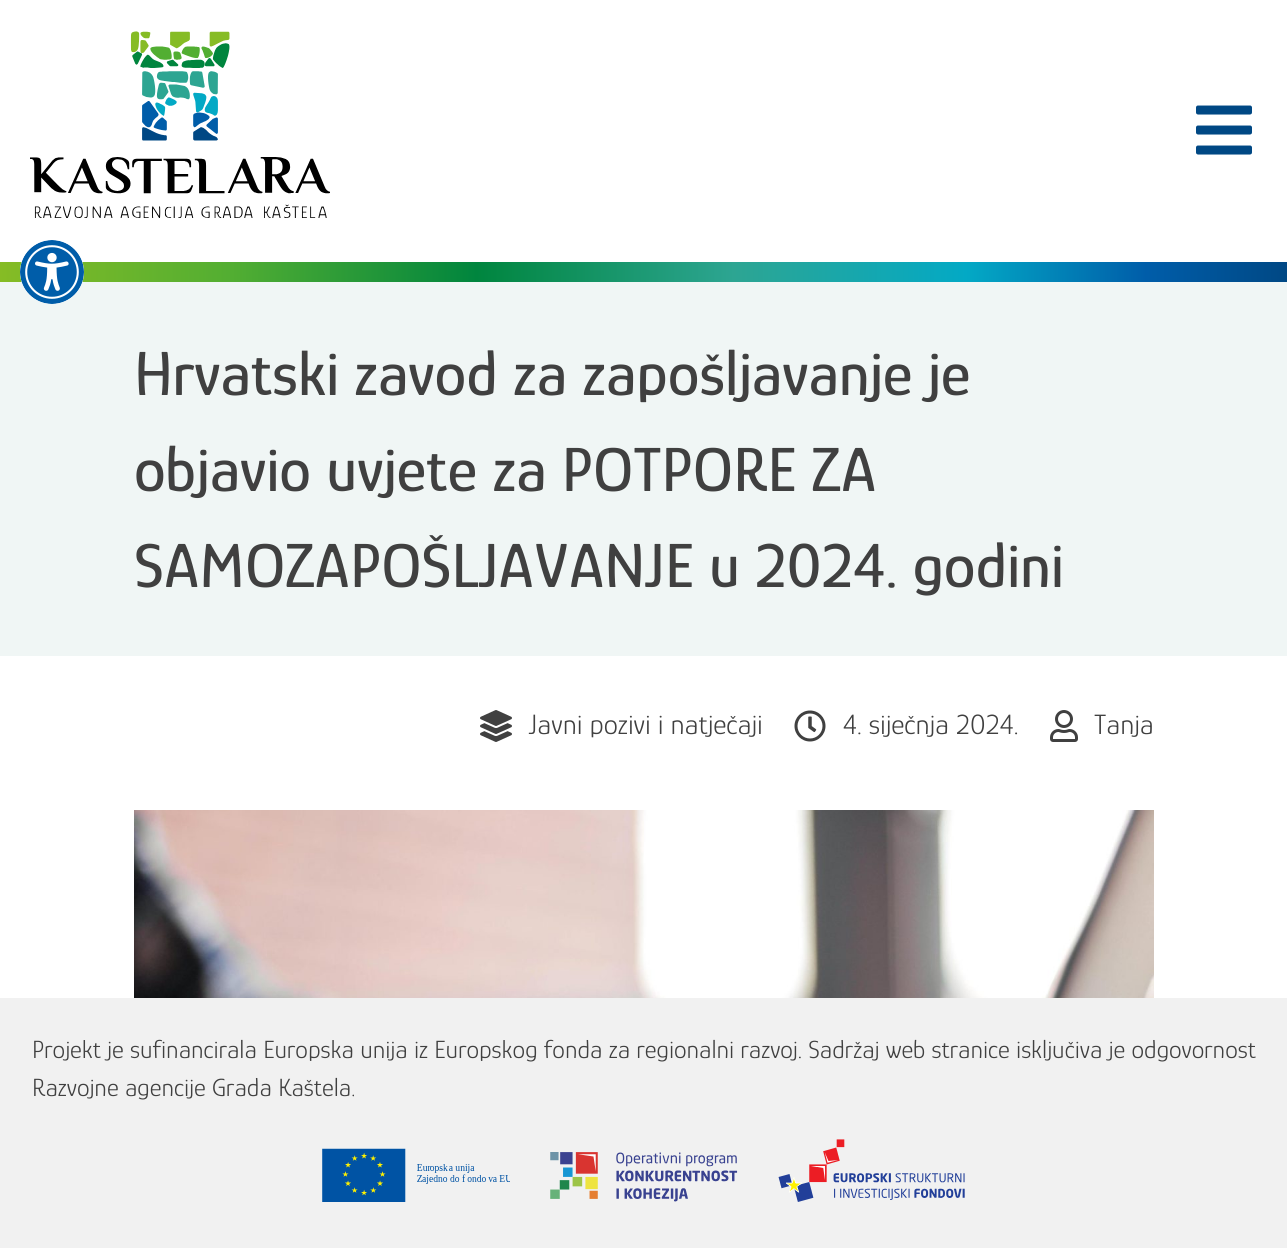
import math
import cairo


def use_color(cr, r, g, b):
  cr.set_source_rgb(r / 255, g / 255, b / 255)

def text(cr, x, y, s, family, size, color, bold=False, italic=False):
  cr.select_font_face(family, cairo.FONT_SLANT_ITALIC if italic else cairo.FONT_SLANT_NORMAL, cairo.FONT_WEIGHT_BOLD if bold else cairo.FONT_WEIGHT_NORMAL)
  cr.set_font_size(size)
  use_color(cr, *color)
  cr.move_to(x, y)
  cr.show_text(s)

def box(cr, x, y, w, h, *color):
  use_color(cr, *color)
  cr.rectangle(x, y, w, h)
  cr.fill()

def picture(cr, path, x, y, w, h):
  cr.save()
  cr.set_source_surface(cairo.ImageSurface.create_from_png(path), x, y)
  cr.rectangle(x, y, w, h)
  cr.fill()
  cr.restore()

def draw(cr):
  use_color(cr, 255, 255, 255)
  cr.paint()
  gradient = cairo.LinearGradient(0, 272, 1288, 272)
  gradient.add_color_stop_rgba(0, 0.525, 0.737, 0.145, 1)
  gradient.add_color_stop_rgba(0.18, 0.322, 0.682, 0.196, 1)
  gradient.add_color_stop_rgba(0.37, 0, 0.522, 0.243, 1)
  gradient.add_color_stop_rgba(0.57, 0.176, 0.647, 0.573, 1)
  gradient.add_color_stop_rgba(0.75, 0.012, 0.663, 0.773, 1)
  gradient.add_color_stop_rgba(0.89, 0, 0.365, 0.663, 1)
  gradient.add_color_stop_rgba(1, 0, 0.282, 0.518, 1)
  cr.set_source(gradient)
  cr.rectangle(0, 262, 1287, 20)
  cr.fill()
  box(cr, 0, 282, 1287, 374, 240, 246, 245)
  use_color(cr, 255, 255, 255)
  cr.arc(52, 272, 32, 0, 2 * math.pi)
  cr.fill()
  picture(cr, "img_01.png", 20, 240, 64, 64)
  picture(cr, "img_02.png", 30, 31, 300, 187)
  picture(cr, "img_03.png", 1196, 105, 56, 50)
  picture(cr, "img_04.png", 480, 710, 32, 32)
  picture(cr, "img_05.png", 794, 710, 32, 32)
  picture(cr, "img_06.png", 1050, 710, 28, 32)
  picture(cr, "img_07.png", 134, 810, 1020, 188)
  box(cr, 0, 998, 1287, 250, 241, 241, 241)
  picture(cr, "img_08.png", 322, 1148, 188, 54)
  picture(cr, "img_09.png", 550, 1152, 188, 50)
  picture(cr, "img_10.png", 778, 1139, 187, 63)
  text(cr, 134, 395, "Hrvatski zavod za zapošljavanje je", "Glory Medium", 64, (64, 64, 64))
  text(cr, 134, 491, "objavio uvjete za POTPORE ZA", "Glory Medium", 64, (64, 64, 64))
  text(cr, 134, 587, "SAMOZAPOŠLJAVANJE u 2024. godini", "Glory Medium", 64, (64, 64, 64))
  text(cr, 529, 734, "Javni pozivi i natječaji", "Glory Light", 28.75, (64, 64, 64))
  text(cr, 843, 734, "4. siječnja 2024.", "Glory Light", 28.75, (64, 64, 64))
  text(cr, 1094, 734, "Tanja", "Glory Light", 28.75, (64, 64, 64))
  text(cr, 32, 1058, "Projekt je sufinancirala Europska unija iz Europskog fonda za regionalni razvoj. Sadržaj web stranice isključiva je odgovornost", "Glory Light", 25.6, (64, 64, 64))
  text(cr, 32, 1096, "Razvojne agencije Grada Kaštela.", "Glory Light", 25.6, (64, 64, 64))


surface = cairo.ImageSurface(cairo.FORMAT_RGB24, 1287, 1248)
cr = cairo.Context(surface)
options = cairo.FontOptions()
options.set_hint_metrics(cairo.HINT_METRICS_OFF)
options.set_hint_style(cairo.HINT_STYLE_NONE)
cr.set_font_options(options)
cr.set_miter_limit(4)
draw(cr)
surface.write_to_png("out.png")
